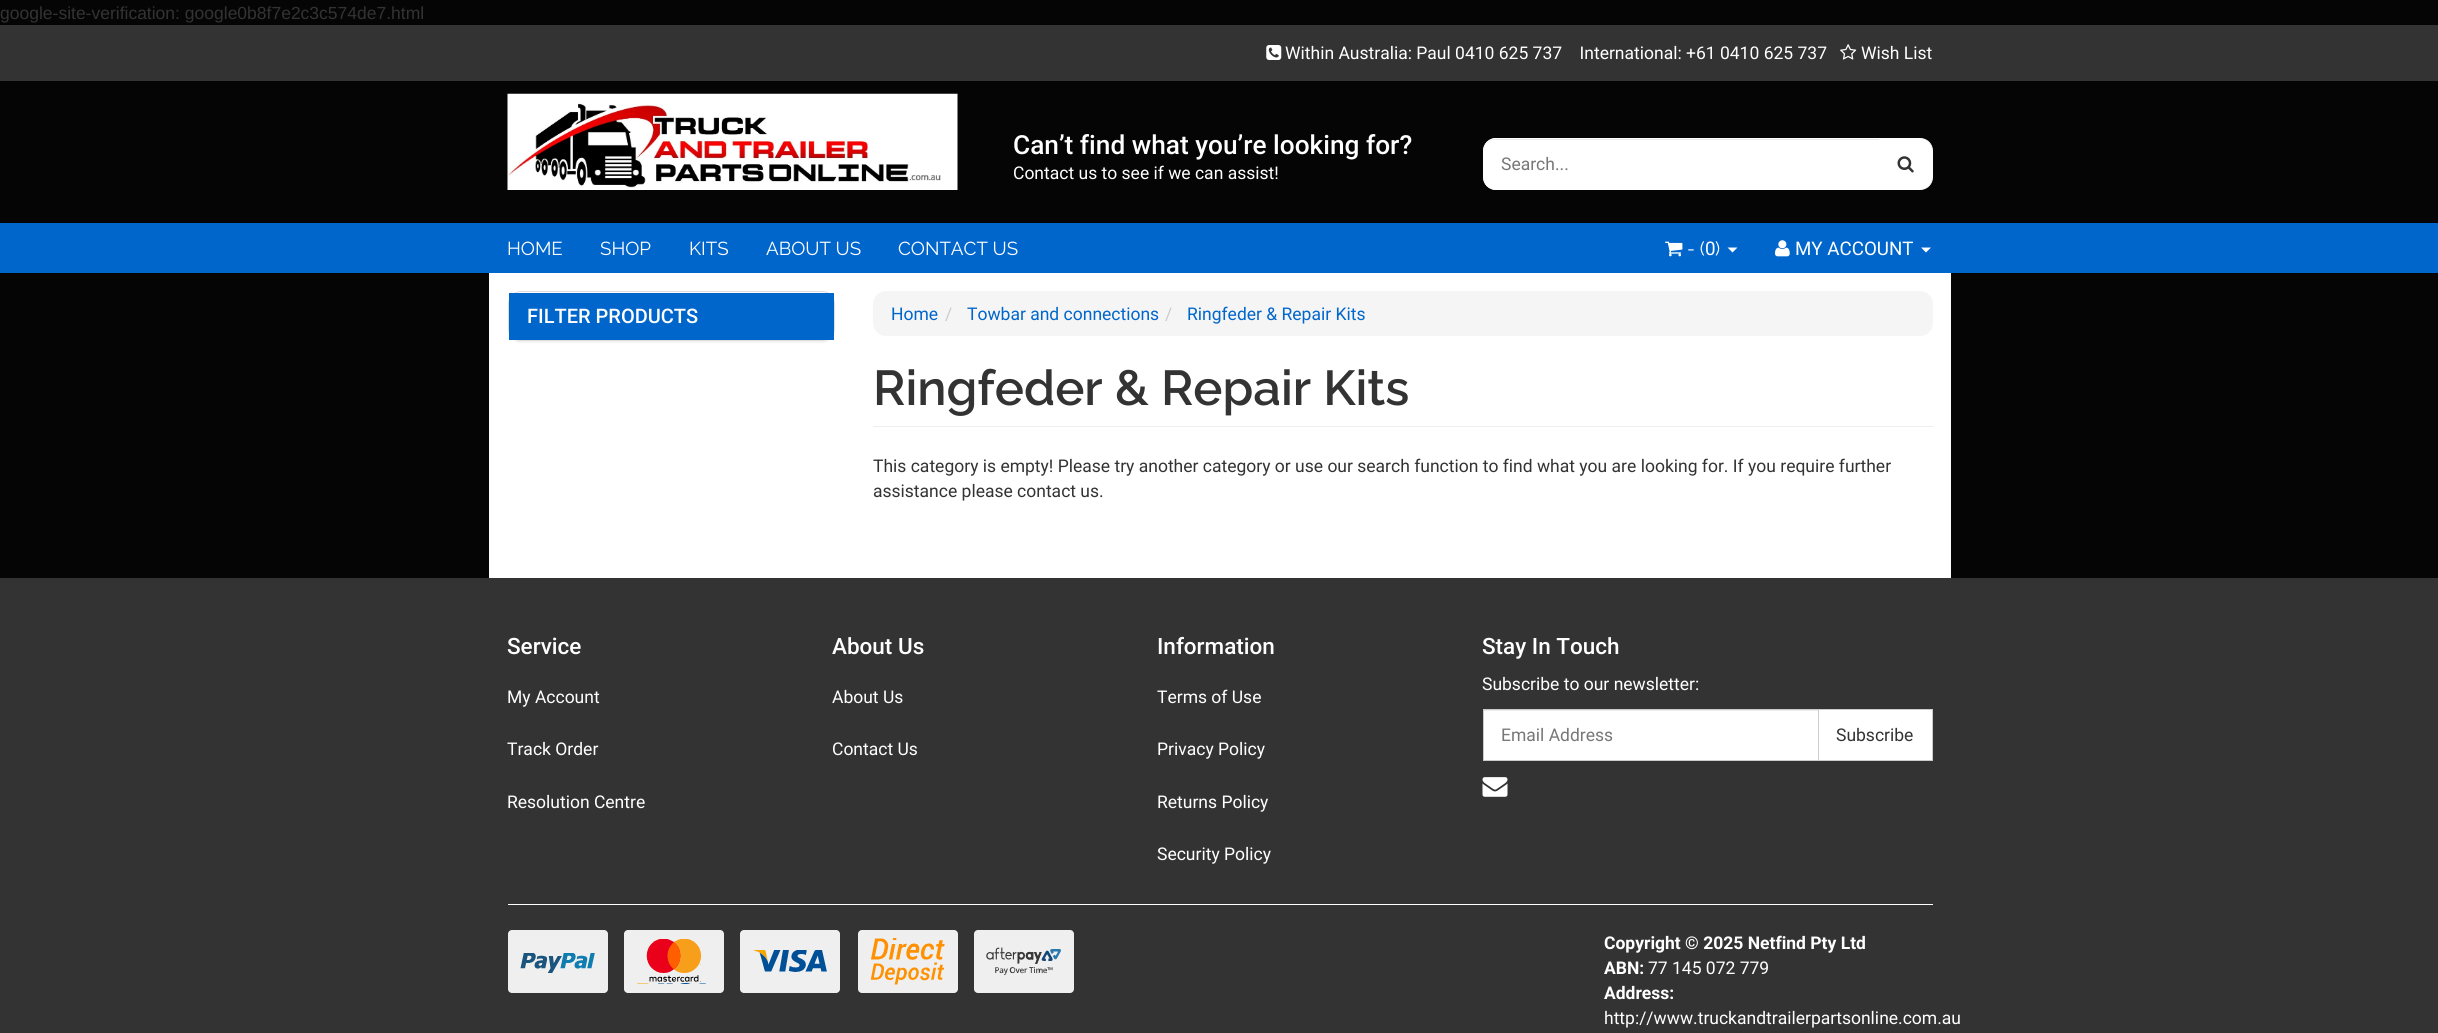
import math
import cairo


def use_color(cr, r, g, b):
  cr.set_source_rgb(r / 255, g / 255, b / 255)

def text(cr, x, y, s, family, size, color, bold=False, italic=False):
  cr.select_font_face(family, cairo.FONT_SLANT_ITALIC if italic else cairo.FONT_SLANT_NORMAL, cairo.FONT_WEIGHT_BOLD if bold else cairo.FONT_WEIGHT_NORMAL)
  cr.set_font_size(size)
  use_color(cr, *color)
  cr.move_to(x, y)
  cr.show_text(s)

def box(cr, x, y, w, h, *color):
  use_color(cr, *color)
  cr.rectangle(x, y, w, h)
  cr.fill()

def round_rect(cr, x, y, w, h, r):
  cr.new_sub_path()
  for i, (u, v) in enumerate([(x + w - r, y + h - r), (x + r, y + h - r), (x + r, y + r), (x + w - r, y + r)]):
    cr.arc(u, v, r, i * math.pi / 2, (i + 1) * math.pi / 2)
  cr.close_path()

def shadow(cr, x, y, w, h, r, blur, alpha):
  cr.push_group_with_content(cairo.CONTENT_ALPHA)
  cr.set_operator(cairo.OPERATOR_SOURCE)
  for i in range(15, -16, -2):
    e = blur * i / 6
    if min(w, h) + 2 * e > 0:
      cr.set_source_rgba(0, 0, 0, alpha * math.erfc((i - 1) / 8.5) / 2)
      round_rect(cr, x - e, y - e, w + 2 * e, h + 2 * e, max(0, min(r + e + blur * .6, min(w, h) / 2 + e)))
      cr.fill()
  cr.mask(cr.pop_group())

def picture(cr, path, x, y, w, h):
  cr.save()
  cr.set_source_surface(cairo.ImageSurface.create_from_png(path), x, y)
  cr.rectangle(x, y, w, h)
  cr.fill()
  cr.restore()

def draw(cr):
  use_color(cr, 5, 5, 5)
  cr.paint()
  box(cr, 0, 25, 2438, 56, 51, 51, 51)
  picture(cr, "img_01.png", 1266, 45, 16, 15)
  picture(cr, "img_02.png", 1840, 44, 17, 16)
  picture(cr, "img_03.png", 507, 93, 451, 97)
  use_color(cr, 255, 255, 255)
  cr.new_path()
  cr.move_to(1879.5, 138.5)
  cr.line_to(1920, 138.5)
  cr.curve_to(1927, 138.5, 1932.5, 144, 1932.5, 151)
  cr.line_to(1932.5, 177)
  cr.curve_to(1932.5, 184, 1927, 189.5, 1920, 189.5)
  cr.line_to(1879.5, 189.5)
  cr.close_path()
  cr.fill_preserve()
  cr.set_line_width(1)
  cr.stroke()
  cr.new_path()
  cr.move_to(1496, 138)
  cr.line_to(1880, 138)
  cr.line_to(1880, 190)
  cr.line_to(1496, 190)
  cr.curve_to(1489, 190, 1483, 184, 1483, 177)
  cr.line_to(1483, 151)
  cr.curve_to(1483, 144, 1489, 138, 1496, 138)
  cr.close_path()
  cr.fill()
  use_color(cr, 236, 236, 236)
  cr.new_path()
  cr.move_to(1495, 140)
  cr.line_to(1879, 140)
  cr.line_to(1879, 139)
  cr.line_to(1493, 139)
  cr.curve_to(1487, 140, 1484, 145, 1484, 151)
  cr.curve_to(1484, 145, 1489, 140, 1495, 140)
  cr.close_path()
  cr.fill()
  cr.new_path()
  cr.move_to(1496, 138.5)
  cr.line_to(1879.5, 138.5)
  cr.line_to(1879.5, 189.5)
  cr.line_to(1496, 189.5)
  cr.curve_to(1489, 189.5, 1483.5, 184, 1483.5, 177)
  cr.line_to(1483.5, 151)
  cr.curve_to(1483.5, 144, 1489, 138.5, 1496, 138.5)
  cr.close_path()
  use_color(cr, 255, 255, 255)
  cr.stroke()
  picture(cr, "img_04.png", 1897, 156, 17, 17)
  box(cr, 0, 223, 2438, 50, 0, 102, 204)
  picture(cr, "img_05.png", 1665, 241, 18, 16)
  use_color(cr, 255, 255, 255)
  cr.new_path()
  cr.move_to(1727.5, 247.5)
  cr.line_to(1737.5, 247.5)
  cr.line_to(1732.5, 252.5)
  cr.close_path()
  cr.fill()
  picture(cr, "img_06.png", 1775, 240, 15, 17)
  cr.new_path()
  cr.move_to(1921, 247.5)
  cr.line_to(1931, 247.5)
  cr.line_to(1926, 252.5)
  cr.close_path()
  cr.fill()
  box(cr, 489, 273, 1462, 305, 255, 255, 255)
  use_color(cr, 0, 0, 0)
  shadow(cr, 508, 293, 327, 50, 13, 0.5, 0.05)
  round_rect(cr, 508.5, 291.5, 326, 49, 12.5)
  use_color(cr, 221, 221, 221)
  cr.stroke()
  box(cr, 509, 293, 325, 47, 0, 102, 204)
  use_color(cr, 245, 245, 245)
  round_rect(cr, 873, 291, 1060, 45, 13)
  cr.fill()
  box(cr, 873, 426, 1060, 1, 238, 238, 238)
  box(cr, 0, 578, 2438, 455, 51, 51, 51)
  box(cr, 1484, 711, 334, 49, 255, 255, 255)
  box(cr, 1484, 710, 334, 1, 236, 236, 236)
  use_color(cr, 255, 255, 255)
  cr.rectangle(1818.5, 709.5, 114, 51)
  cr.fill_preserve()
  use_color(cr, 204, 204, 204)
  cr.stroke()
  cr.rectangle(1483.5, 709.5, 335, 51)
  cr.stroke()
  picture(cr, "img_07.png", 1482, 777, 26, 20)
  box(cr, 508, 904, 1425, 1, 255, 255, 255)
  use_color(cr, 239, 239, 239)
  round_rect(cr, 508, 930, 100, 63, 4)
  cr.fill()
  picture(cr, "img_08.png", 520, 953, 75, 20)
  round_rect(cr, 624, 930, 100, 63, 4)
  cr.fill()
  picture(cr, "img_09.png", 637, 939, 69, 45)
  round_rect(cr, 740, 930, 100, 63, 4)
  cr.fill()
  picture(cr, "img_10.png", 753, 950, 74, 22)
  round_rect(cr, 858, 930, 100, 63, 4)
  cr.fill()
  picture(cr, "img_11.png", 870, 938, 75, 47)
  round_rect(cr, 974, 930, 100, 63, 4)
  cr.fill()
  picture(cr, "img_12.png", 986, 947, 75, 28)
  text(cr, 0, 19, "google-site-verification: google0b8f7e2c3c574de7.html", "Liberation Sans", 17.5, (51, 51, 51))
  text(cr, 1285, 59, "Within Australia: Paul 0410 625 737    International: +61 0410 625 737", "Roboto", 17.5, (255, 255, 255))
  text(cr, 1861, 59, "Wish List", "Roboto", 17.5, (255, 255, 255))
  text(cr, 1013, 154, "Can’t find what you’re looking for?", "Roboto Medium", 26.25, (255, 255, 255))
  text(cr, 1013, 179, "Contact us to see if we can assist!", "Roboto", 17.5, (255, 255, 255))
  text(cr, 1501, 170, "Search...", "Roboto", 17.5, (119, 119, 119))
  text(cr, 507, 255, "HOME", "Raleway", 18.75, (255, 255, 255))
  text(cr, 600, 255, "SHOP", "Raleway", 18.75, (255, 255, 255))
  text(cr, 689, 255, "KITS", "Raleway", 18.75, (255, 255, 255))
  text(cr, 766, 255, "ABOUT US", "Raleway", 18.75, (255, 255, 255))
  text(cr, 898, 255, "CONTACT US", "Raleway", 18.75, (255, 255, 255))
  text(cr, 1687, 255, "- (", "Raleway", 18.75, (255, 255, 255))
  text(cr, 1705, 255, "0", "Roboto", 18.75, (255, 255, 255))
  text(cr, 1715, 255, ")", "Raleway", 18.75, (255, 255, 255))
  text(cr, 1795, 255, "MY ACCOUNT", "Roboto", 18.75, (255, 255, 255))
  text(cr, 527, 323, "FILTER PRODUCTS", "Roboto Medium", 20, (255, 255, 255))
  text(cr, 891, 320, "Home", "Roboto", 17.5, (0, 102, 204))
  text(cr, 945, 320, "/", "Roboto", 17.5, (204, 204, 204))
  text(cr, 967, 320, "Towbar and connections", "Roboto", 17.5, (0, 102, 204))
  text(cr, 1165, 320, "/", "Roboto", 17.5, (204, 204, 204))
  text(cr, 1187, 320, "Ringfeder & Repair Kits", "Roboto", 17.5, (0, 102, 204))
  text(cr, 873, 405, "Ringfeder & Repair Kits", "Raleway SemiBold", 49, (51, 51, 51))
  text(cr, 873, 472, "This category is empty! Please try another category or use our search function to find what you are looking for. If you require further", "Roboto", 17.5, (51, 51, 51))
  text(cr, 873, 497, "assistance please contact us.", "Roboto", 17.5, (51, 51, 51))
  text(cr, 507, 654, "Service", "Roboto Medium", 22.5, (255, 255, 255))
  text(cr, 507, 703, "My Account", "Roboto", 17.5, (255, 255, 255))
  text(cr, 507, 755, "Track Order", "Roboto", 17.5, (255, 255, 255))
  text(cr, 507, 808, "Resolution Centre", "Roboto", 17.5, (255, 255, 255))
  text(cr, 832, 654, "About Us", "Roboto Medium", 22.5, (255, 255, 255))
  text(cr, 832, 703, "About Us", "Roboto", 17.5, (255, 255, 255))
  text(cr, 832, 755, "Contact Us", "Roboto", 17.5, (255, 255, 255))
  text(cr, 1157, 654, "Information", "Roboto Medium", 22.5, (255, 255, 255))
  text(cr, 1157, 703, "Terms of Use", "Roboto", 17.5, (255, 255, 255))
  text(cr, 1157, 755, "Privacy Policy", "Roboto", 17.5, (255, 255, 255))
  text(cr, 1157, 808, "Returns Policy", "Roboto", 17.5, (255, 255, 255))
  text(cr, 1157, 860, "Security Policy", "Roboto", 17.5, (255, 255, 255))
  text(cr, 1482, 654, "Stay In Touch", "Roboto Medium", 22.5, (255, 255, 255))
  text(cr, 1482, 690, "Subscribe to our newsletter:", "Roboto", 17.5, (255, 255, 255))
  text(cr, 1501, 741, "Email Address", "Roboto", 17.5, (119, 119, 119))
  text(cr, 1836, 741, "Subscribe", "Roboto", 17.5, (51, 51, 51))
  text(cr, 1604, 949, "Copyright © 2025 Netfind Pty Ltd", "Roboto", 17.5, (255, 255, 255), bold=True)
  text(cr, 1604, 974, "ABN:", "Roboto", 17.5, (255, 255, 255), bold=True)
  text(cr, 1648, 974, "77 145 072 779", "Roboto", 17.5, (255, 255, 255))
  text(cr, 1604, 999, "Address:", "Roboto", 17.5, (255, 255, 255), bold=True)
  text(cr, 1604, 1024, "http://www.truckandtrailerpartsonline.com.au", "Roboto", 17.5, (255, 255, 255))


surface = cairo.ImageSurface(cairo.FORMAT_RGB24, 2438, 1033)
cr = cairo.Context(surface)
options = cairo.FontOptions()
options.set_hint_metrics(cairo.HINT_METRICS_OFF)
options.set_hint_style(cairo.HINT_STYLE_NONE)
cr.set_font_options(options)
cr.set_miter_limit(4)
draw(cr)
surface.write_to_png("out.png")
